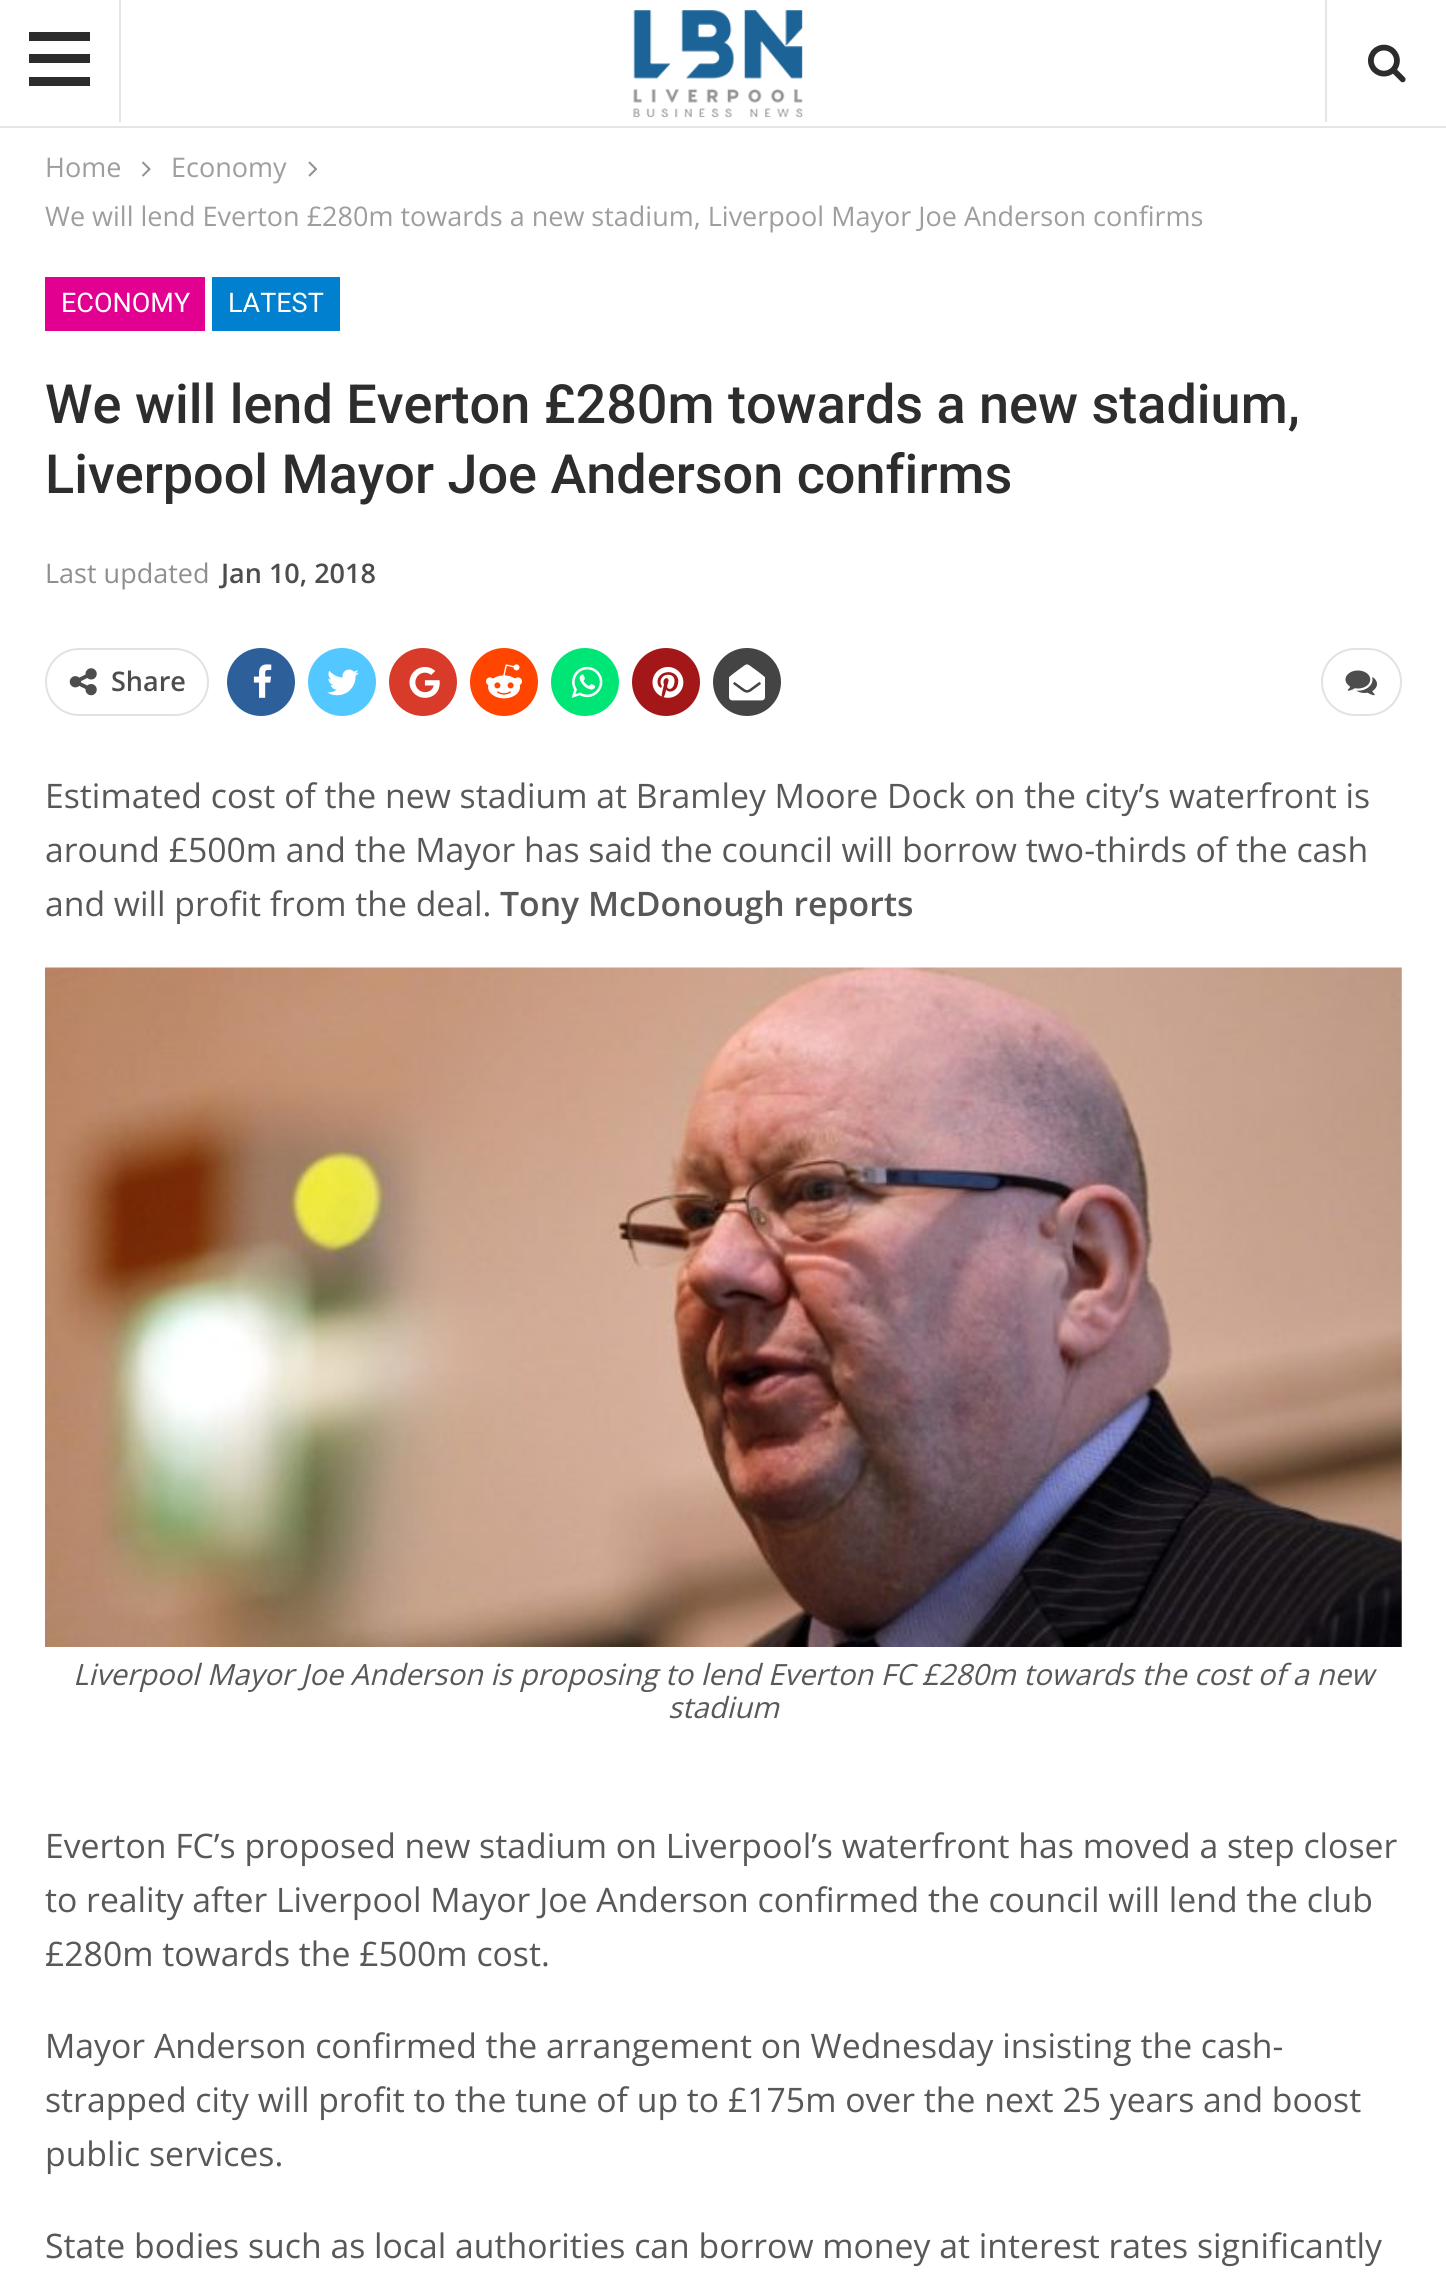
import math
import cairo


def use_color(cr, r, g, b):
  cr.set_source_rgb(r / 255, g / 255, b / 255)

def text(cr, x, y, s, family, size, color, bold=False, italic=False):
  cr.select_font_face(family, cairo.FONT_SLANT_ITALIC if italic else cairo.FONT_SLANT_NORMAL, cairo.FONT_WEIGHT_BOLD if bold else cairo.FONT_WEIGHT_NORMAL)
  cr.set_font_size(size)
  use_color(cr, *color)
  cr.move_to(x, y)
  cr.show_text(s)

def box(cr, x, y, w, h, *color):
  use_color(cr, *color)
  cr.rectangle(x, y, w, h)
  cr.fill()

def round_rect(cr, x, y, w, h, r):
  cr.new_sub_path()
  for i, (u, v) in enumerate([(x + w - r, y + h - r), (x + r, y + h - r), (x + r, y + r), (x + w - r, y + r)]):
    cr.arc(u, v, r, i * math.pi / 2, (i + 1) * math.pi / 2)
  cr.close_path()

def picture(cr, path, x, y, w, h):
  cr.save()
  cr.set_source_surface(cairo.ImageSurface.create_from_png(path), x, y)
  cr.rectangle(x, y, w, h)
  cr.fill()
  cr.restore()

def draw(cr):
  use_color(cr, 255, 255, 255)
  cr.paint()
  box(cr, 0, 126, 1446, 2, 229, 229, 229)
  box(cr, 119, 0, 2, 122, 229, 229, 229)
  box(cr, 29, 54, 61, 9, 44, 44, 44)
  box(cr, 29, 32, 61, 9, 44, 44, 44)
  box(cr, 29, 77, 61, 9, 44, 44, 44)
  picture(cr, "img_01.png", 633, 10, 170, 108)
  box(cr, 1325, 0, 2, 122, 229, 229, 229)
  picture(cr, "img_02.png", 1368, 44, 38, 39)
  picture(cr, "img_03.png", 142, 161, 9, 16)
  picture(cr, "img_04.png", 308, 161, 10, 16)
  box(cr, 45, 277, 160, 54, 226, 0, 144)
  box(cr, 212, 277, 128, 54, 0, 128, 206)
  round_rect(cr, 46, 649, 162, 66, 33)
  use_color(cr, 226, 226, 226)
  cr.stroke()
  picture(cr, "img_05.png", 69, 668, 28, 28)
  use_color(cr, 45, 95, 154)
  cr.arc(261, 682, 34, 0, 2 * math.pi)
  cr.fill()
  picture(cr, "img_06.png", 253, 664, 19, 34)
  use_color(cr, 83, 199, 255)
  cr.arc(342, 682, 34, 0, 2 * math.pi)
  cr.fill()
  picture(cr, "img_07.png", 327, 669, 32, 27)
  use_color(cr, 217, 59, 43)
  cr.arc(423, 682, 34, 0, 2 * math.pi)
  cr.fill()
  picture(cr, "img_08.png", 409, 667, 31, 31)
  use_color(cr, 255, 69, 0)
  cr.arc(504, 682, 34, 0, 2 * math.pi)
  cr.fill()
  picture(cr, "img_09.png", 486, 664, 36, 35)
  use_color(cr, 0, 230, 118)
  cr.arc(585, 682, 34, 0, 2 * math.pi)
  cr.fill()
  picture(cr, "img_10.png", 571, 666, 32, 32)
  use_color(cr, 164, 23, 25)
  cr.arc(666, 682, 34, 0, 2 * math.pi)
  cr.fill()
  picture(cr, "img_11.png", 652, 667, 32, 31)
  use_color(cr, 68, 68, 68)
  cr.arc(747, 682, 34, 0, 2 * math.pi)
  cr.fill()
  picture(cr, "img_12.png", 729, 664, 36, 37)
  round_rect(cr, 1322, 649, 79, 66, 33)
  use_color(cr, 226, 226, 226)
  cr.stroke()
  picture(cr, "img_13.png", 1345, 670, 32, 26)
  picture(cr, "img_14.png", 45, 967, 1357, 680)
  text(cr, 45, 177, "Home", "Open Sans", 27, (158, 158, 158))
  text(cr, 171, 177, "Economy", "Open Sans", 27, (158, 158, 158))
  text(cr, 45, 226, "We will lend Everton £280m towards a new stadium, Liverpool Mayor Joe Anderson confirms", "Open Sans", 27, (158, 158, 158))
  text(cr, 61, 312, "ECONOMY", "Roboto", 27, (255, 255, 255))
  text(cr, 228, 312, "LATEST", "Roboto", 27, (255, 255, 255))
  text(cr, 45, 423, "We will lend Everton £280m towards a new stadium,", "Roboto Medium", 54, (45, 45, 45))
  text(cr, 45, 493, "Liverpool Mayor Joe Anderson confirms", "Roboto Medium", 54, (45, 45, 45))
  text(cr, 45, 583, "Last updated", "Open Sans", 27, (143, 143, 143))
  text(cr, 221, 583, "Jan 10, 2018", "Open Sans SemiBold", 27, (77, 77, 77))
  text(cr, 111, 691, "Share", "Open Sans SemiBold", 27, (77, 77, 77))
  text(cr, 45, 808, "Estimated cost of the new stadium at Bramley Moore Dock on the city’s waterfront is", "Open Sans", 33.75, (88, 88, 88))
  text(cr, 45, 862, "around £500m and the Mayor has said the council will borrow two-thirds of the cash", "Open Sans", 33.75, (88, 88, 88))
  text(cr, 45, 916, "and will profit from the deal.", "Open Sans", 33.75, (88, 88, 88))
  text(cr, 500, 916, "Tony McDonough reports", "Open Sans SemiBold", 33.75, (88, 88, 88))
  text(cr, 73, 1685, "Liverpool Mayor Joe Anderson is proposing to lend Everton FC £280m towards the cost of a new", "Open Sans", 29.25, (88, 88, 88), italic=True)
  text(cr, 668, 1718, "stadium", "Open Sans", 29.25, (88, 88, 88), italic=True)
  text(cr, 45, 1858, "Everton FC’s proposed new stadium on Liverpool’s waterfront has moved a step closer", "Open Sans", 33.75, (88, 88, 88))
  text(cr, 45, 1912, "to reality after Liverpool Mayor Joe Anderson confirmed the council will lend the club", "Open Sans", 33.75, (88, 88, 88))
  text(cr, 45, 1966, "£280m towards the £500m cost.", "Open Sans", 33.75, (88, 88, 88))
  text(cr, 45, 2058, "Mayor Anderson confirmed the arrangement on Wednesday insisting the cash-", "Open Sans", 33.75, (88, 88, 88))
  text(cr, 45, 2112, "strapped city will profit to the tune of up to £175m over the next 25 years and boost", "Open Sans", 33.75, (88, 88, 88))
  text(cr, 45, 2166, "public services.", "Open Sans", 33.75, (88, 88, 88))
  text(cr, 45, 2258, "State bodies such as local authorities can borrow money at interest rates significantly", "Open Sans", 33.75, (88, 88, 88))


surface = cairo.ImageSurface(cairo.FORMAT_RGB24, 1446, 2289)
cr = cairo.Context(surface)
options = cairo.FontOptions()
options.set_hint_metrics(cairo.HINT_METRICS_OFF)
options.set_hint_style(cairo.HINT_STYLE_NONE)
cr.set_font_options(options)
cr.set_miter_limit(4)
draw(cr)
surface.write_to_png("out.png")
